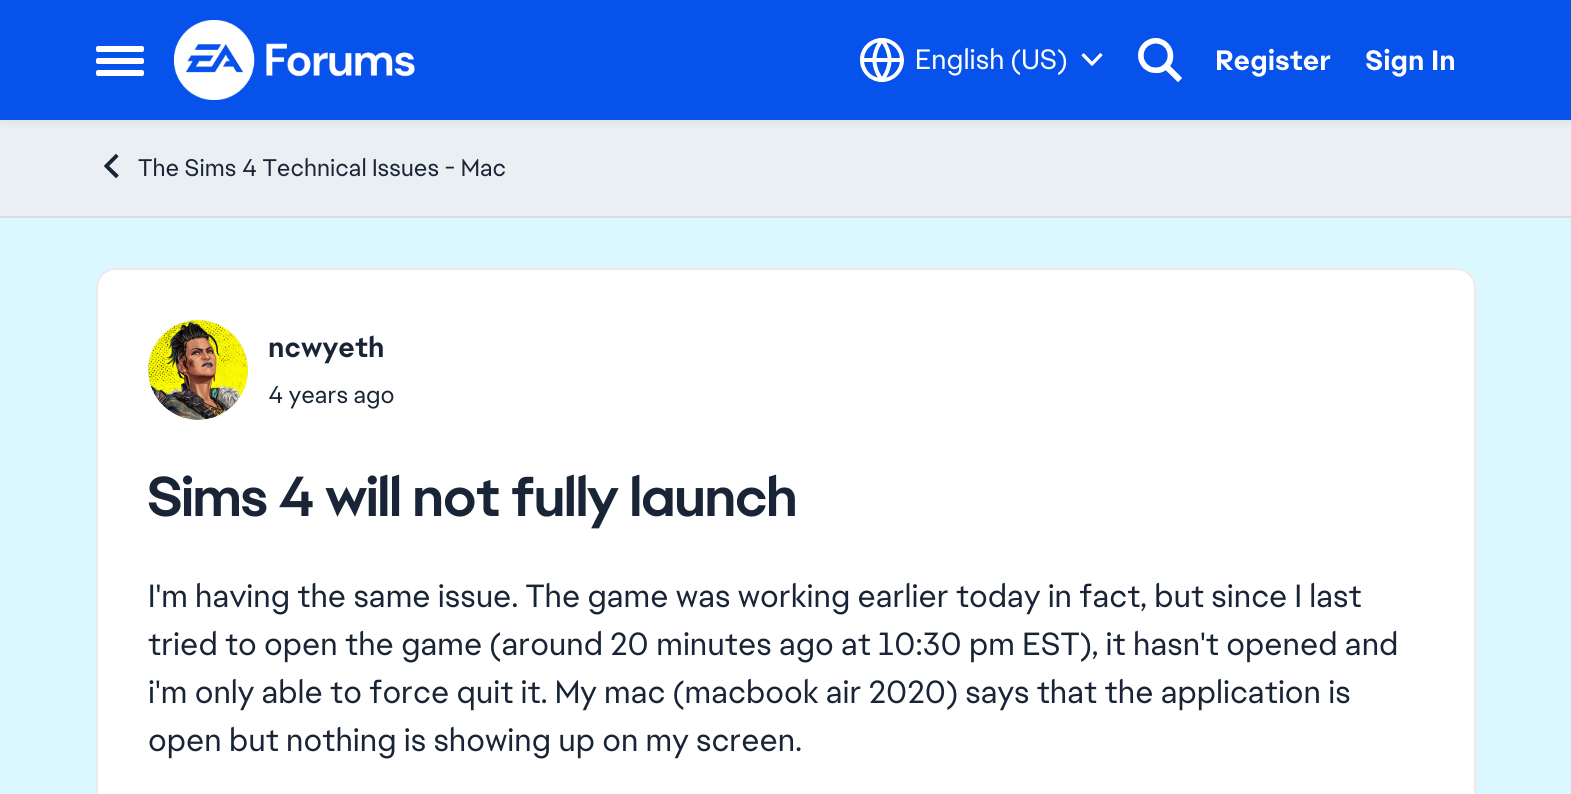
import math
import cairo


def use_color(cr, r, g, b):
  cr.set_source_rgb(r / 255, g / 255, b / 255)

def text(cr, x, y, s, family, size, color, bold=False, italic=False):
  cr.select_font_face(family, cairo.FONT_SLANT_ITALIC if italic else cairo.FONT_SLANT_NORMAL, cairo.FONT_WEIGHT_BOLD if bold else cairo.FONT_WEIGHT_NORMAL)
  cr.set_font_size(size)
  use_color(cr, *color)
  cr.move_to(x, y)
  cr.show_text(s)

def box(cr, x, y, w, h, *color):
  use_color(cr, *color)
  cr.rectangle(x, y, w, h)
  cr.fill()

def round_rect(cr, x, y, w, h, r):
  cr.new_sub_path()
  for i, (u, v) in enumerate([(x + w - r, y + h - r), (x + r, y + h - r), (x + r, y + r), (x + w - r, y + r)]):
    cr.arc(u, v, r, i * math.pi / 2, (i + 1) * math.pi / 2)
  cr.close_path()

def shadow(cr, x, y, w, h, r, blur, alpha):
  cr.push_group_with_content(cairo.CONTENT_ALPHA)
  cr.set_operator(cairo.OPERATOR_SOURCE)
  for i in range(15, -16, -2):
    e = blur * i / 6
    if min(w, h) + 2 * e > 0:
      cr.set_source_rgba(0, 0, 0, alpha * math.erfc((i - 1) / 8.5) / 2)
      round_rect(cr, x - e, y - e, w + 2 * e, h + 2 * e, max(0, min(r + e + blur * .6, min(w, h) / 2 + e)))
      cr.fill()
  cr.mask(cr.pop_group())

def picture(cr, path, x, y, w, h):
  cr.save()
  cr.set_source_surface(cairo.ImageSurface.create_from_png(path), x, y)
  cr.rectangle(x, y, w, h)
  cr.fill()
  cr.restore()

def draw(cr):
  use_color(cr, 234, 239, 244)
  cr.paint()
  use_color(cr, 51, 51, 51)
  shadow(cr, 0, 4, 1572, 120, 0, 4, 0.06)
  box(cr, 0, 0, 1571, 120, 7, 82, 235)
  use_color(cr, 255, 255, 255)
  round_rect(cr, 96, 46, 48, 6, 2)
  cr.fill()
  round_rect(cr, 96, 58, 48, 6, 2)
  cr.fill()
  round_rect(cr, 96, 70, 48, 6, 2)
  cr.fill()
  picture(cr, "img_01.png", 174, 20, 241, 80)
  picture(cr, "img_02.png", 860, 38, 44, 44)
  picture(cr, "img_03.png", 1081, 53, 22, 13)
  picture(cr, "img_04.png", 1138, 38, 44, 45)
  box(cr, 0, 216, 1571, 2, 215, 220, 224)
  picture(cr, "img_05.png", 104, 154, 15, 24)
  box(cr, 0, 218, 1571, 576, 219, 247, 255)
  use_color(cr, 255, 255, 255)
  round_rect(cr, 96, 268, 1380, 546, 20)
  cr.fill()
  round_rect(cr, 97, 269, 1378, 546, 19)
  cr.set_source_rgba(0, 0, 0, 0.08)
  cr.stroke()
  use_color(cr, 217, 217, 217)
  cr.arc(198, 370, 50, 0, 2 * math.pi)
  cr.fill()
  picture(cr, "img_06.png", 148, 320, 100, 100)
  text(cr, 915, 69, "English (US)", "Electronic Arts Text", 28, (255, 255, 255))
  text(cr, 1215, 70, "Register", "Electronic Arts Text", 28, (255, 255, 255), bold=True)
  text(cr, 1365, 70, "Sign In", "Electronic Arts Text", 28, (255, 255, 255), bold=True)
  text(cr, 138, 176, "The Sims 4 Technical Issues - Mac", "Electronic Arts Text", 24, (25, 37, 55))
  text(cr, 268, 357, "ncwyeth", "Electronic Arts Text", 28, (25, 37, 55), bold=True)
  text(cr, 268, 403, "4 years ago", "Electronic Arts Text", 24, (25, 37, 55))
  text(cr, 148, 516, "Sims 4 will not fully launch", "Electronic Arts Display", 56, (25, 37, 55), bold=True)
  text(cr, 148, 607, "I'm having the same issue. The game was working earlier today in fact, but since I last", "Electronic Arts Text", 32, (25, 37, 55))
  text(cr, 148, 655, "tried to open the game (around 20 minutes ago at 10:30 pm EST), it hasn't opened and", "Electronic Arts Text", 32, (25, 37, 55))
  text(cr, 148, 703, "i'm only able to force quit it. My mac (macbook air 2020) says that the application is", "Electronic Arts Text", 32, (25, 37, 55))
  text(cr, 148, 751, "open but nothing is showing up on my screen.", "Electronic Arts Text", 32, (25, 37, 55))


surface = cairo.ImageSurface(cairo.FORMAT_RGB24, 1571, 794)
cr = cairo.Context(surface)
options = cairo.FontOptions()
options.set_hint_metrics(cairo.HINT_METRICS_OFF)
options.set_hint_style(cairo.HINT_STYLE_NONE)
cr.set_font_options(options)
cr.set_miter_limit(4)
draw(cr)
surface.write_to_png("out.png")
